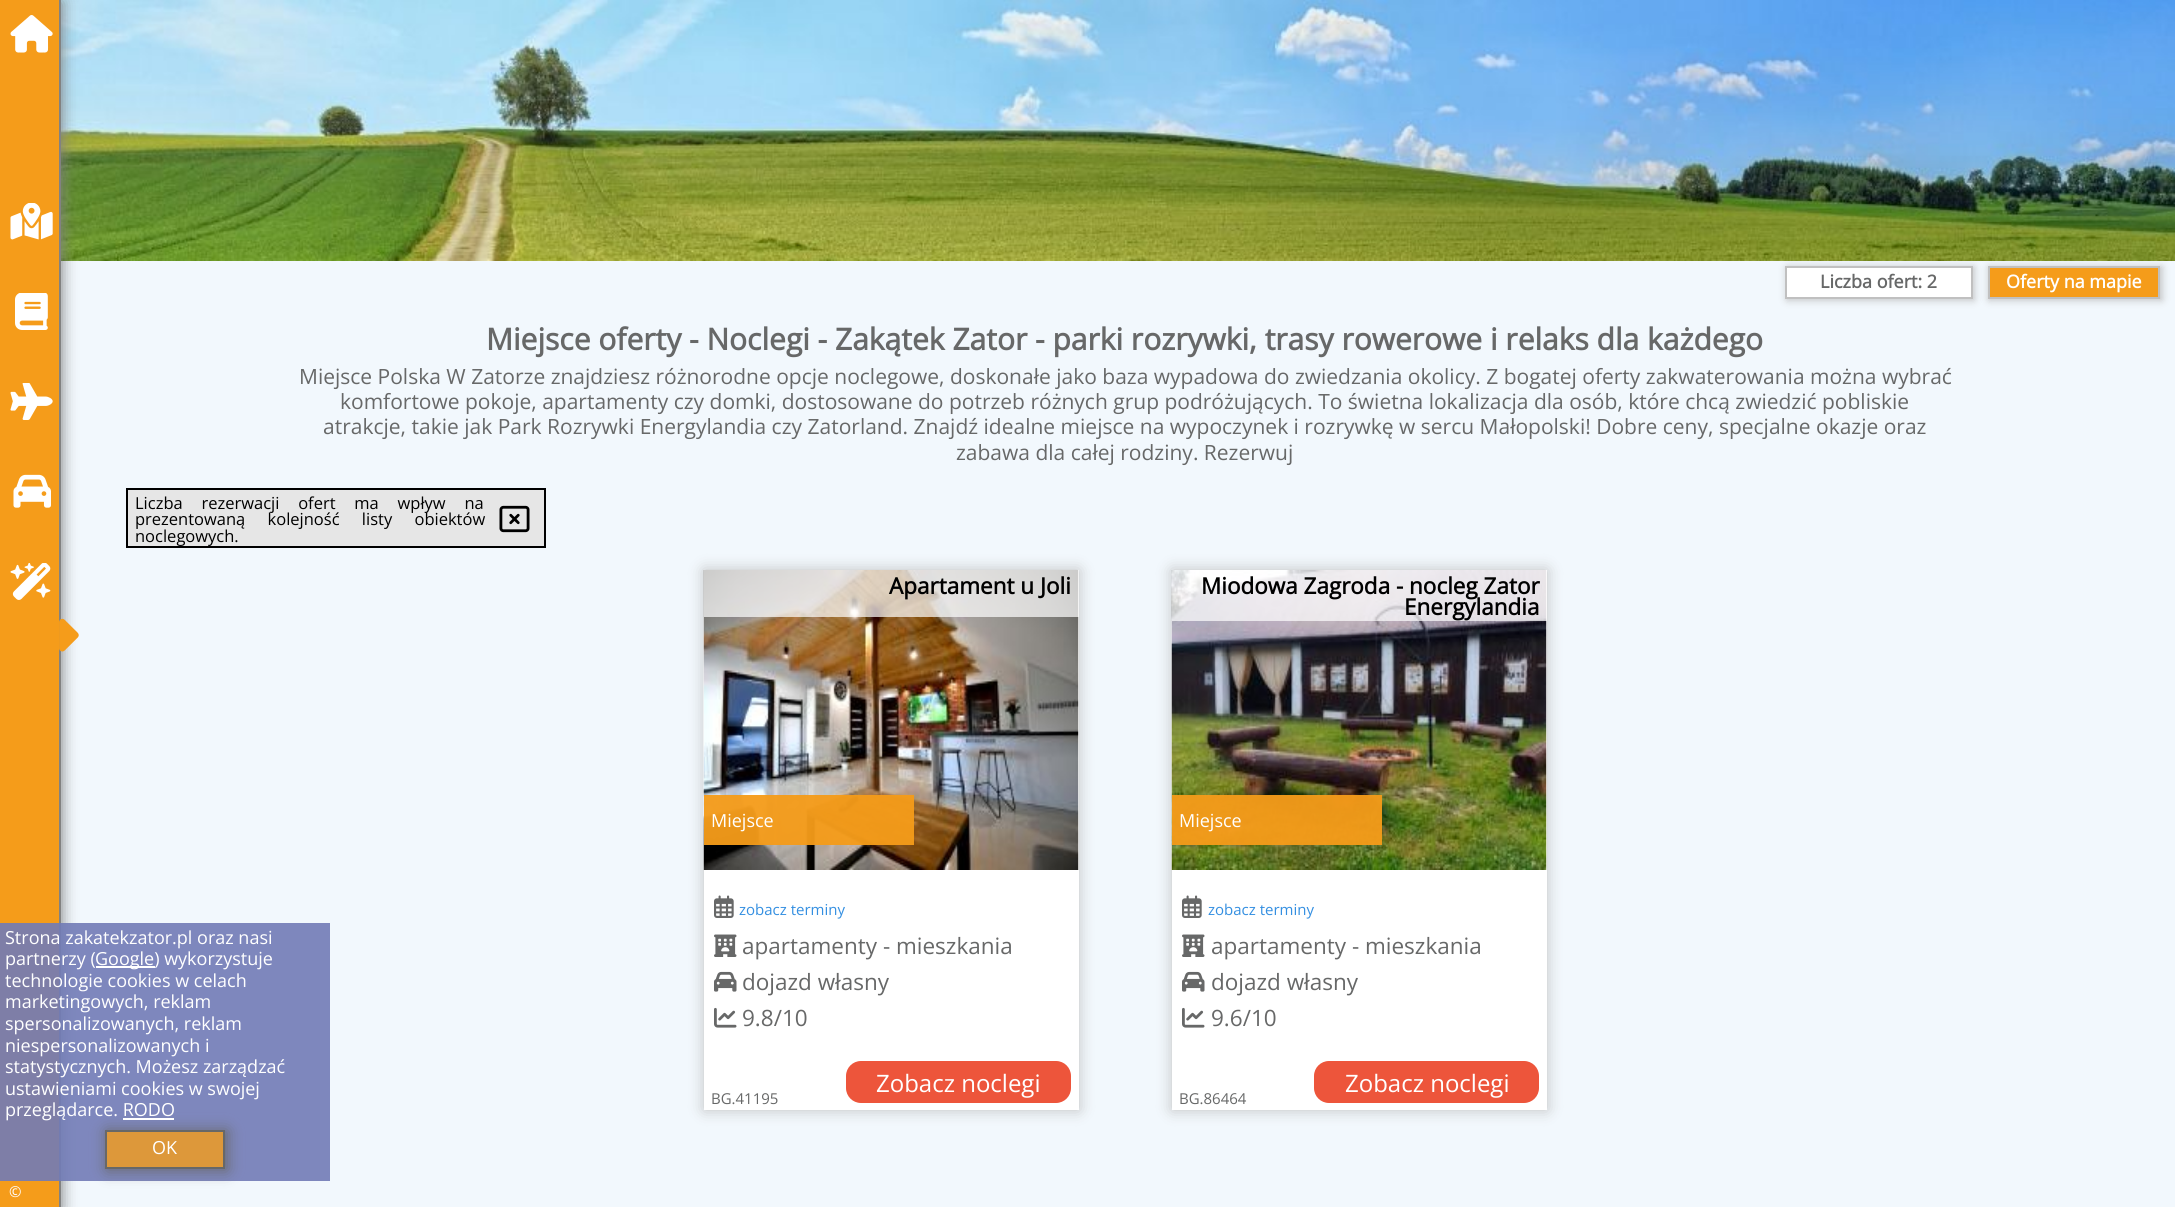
import math
import cairo


def use_color(cr, r, g, b):
  cr.set_source_rgb(r / 255, g / 255, b / 255)

def text(cr, x, y, s, family, size, color, bold=False, italic=False):
  cr.select_font_face(family, cairo.FONT_SLANT_ITALIC if italic else cairo.FONT_SLANT_NORMAL, cairo.FONT_WEIGHT_BOLD if bold else cairo.FONT_WEIGHT_NORMAL)
  cr.set_font_size(size)
  use_color(cr, *color)
  cr.move_to(x, y)
  cr.show_text(s)

def spaced_text(cr, x, y, s, letter, word):
  cr.move_to(x, y)
  for ch in s:
    cr.show_text(ch)
    cr.rel_move_to(letter + word * (ch == ' '), 0)

def box(cr, x, y, w, h, *color):
  use_color(cr, *color)
  cr.rectangle(x, y, w, h)
  cr.fill()

def round_rect(cr, x, y, w, h, r):
  cr.new_sub_path()
  for i, (u, v) in enumerate([(x + w - r, y + h - r), (x + r, y + h - r), (x + r, y + r), (x + w - r, y + r)]):
    cr.arc(u, v, r, i * math.pi / 2, (i + 1) * math.pi / 2)
  cr.close_path()

def shadow(cr, x, y, w, h, r, blur, alpha):
  cr.push_group_with_content(cairo.CONTENT_ALPHA)
  cr.set_operator(cairo.OPERATOR_SOURCE)
  for i in range(15, -16, -2):
    e = blur * i / 6
    if min(w, h) + 2 * e > 0:
      cr.set_source_rgba(0, 0, 0, alpha * math.erfc((i - 1) / 8.5) / 2)
      round_rect(cr, x - e, y - e, w + 2 * e, h + 2 * e, max(0, min(r + e + blur * .6, min(w, h) / 2 + e)))
      cr.fill()
  cr.mask(cr.pop_group())

def picture(cr, path, x, y, w, h):
  cr.save()
  cr.set_source_surface(cairo.ImageSurface.create_from_png(path), x, y)
  cr.rectangle(x, y, w, h)
  cr.fill()
  cr.restore()

def draw(cr):
  use_color(cr, 242, 248, 253)
  cr.paint()
  picture(cr, "img_01.png", 61, 0, 2114, 261)
  cr.save()
  cr.rectangle(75, 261, 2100, 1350)
  cr.clip()
  use_color(cr, 192, 192, 192)
  shadow(cr, 1787, 267, 187, 33, 0, 4, 1)
  cr.restore()
  use_color(cr, 255, 255, 255)
  cr.rectangle(1786, 267, 186, 31)
  cr.fill_preserve()
  use_color(cr, 192, 192, 192)
  cr.stroke()
  cr.save()
  cr.rectangle(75, 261, 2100, 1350)
  cr.clip()
  use_color(cr, 192, 192, 192)
  shadow(cr, 1989, 267, 173, 33, 0, 4, 1)
  cr.restore()
  use_color(cr, 245, 156, 26)
  cr.rectangle(1989, 267, 170, 31)
  cr.fill_preserve()
  use_color(cr, 192, 192, 192)
  cr.stroke()
  use_color(cr, 230, 230, 230)
  cr.rectangle(127, 489, 418, 58)
  cr.fill_preserve()
  use_color(cr, 0, 0, 0)
  cr.stroke()
  picture(cr, "img_02.png", 499, 505, 31, 28)
  use_color(cr, 192, 192, 192)
  shadow(cr, 704, 570, 375, 540, 0, 7.5, 1)
  box(cr, 704, 570, 375, 540, 255, 255, 255)
  picture(cr, "img_03.png", 703, 570, 1, 300)
  picture(cr, "img_04.png", 703, 570, 376, 300)
  cr.set_source_rgba(1, 1, 1, 0.7)
  cr.rectangle(704, 570, 375, 47)
  cr.fill()
  cr.set_source_rgba(0.961, 0.612, 0.102, 0.95)
  cr.rectangle(704, 795, 210, 50)
  cr.fill()
  picture(cr, "img_05.png", 714, 895, 20, 23)
  picture(cr, "img_06.png", 714, 934, 23, 23)
  picture(cr, "img_07.png", 714, 971, 23, 21)
  picture(cr, "img_08.png", 714, 1007, 23, 21)
  use_color(cr, 237, 85, 59)
  round_rect(cr, 846, 1061, 225, 42, 15)
  cr.fill()
  use_color(cr, 192, 192, 192)
  shadow(cr, 1172, 570, 375, 540, 0, 7.5, 1)
  box(cr, 1172, 570, 375, 540, 255, 255, 255)
  picture(cr, "img_03.png", 1171, 570, 1, 300)
  picture(cr, "img_09.png", 1171, 570, 376, 300)
  cr.set_source_rgba(1, 1, 1, 0.7)
  cr.rectangle(1172, 570, 375, 51)
  cr.fill()
  cr.set_source_rgba(0.961, 0.612, 0.102, 0.95)
  cr.rectangle(1172, 795, 210, 50)
  cr.fill()
  picture(cr, "img_05.png", 1182, 895, 20, 23)
  picture(cr, "img_06.png", 1182, 934, 23, 23)
  picture(cr, "img_07.png", 1182, 971, 23, 21)
  picture(cr, "img_08.png", 1182, 1007, 23, 21)
  use_color(cr, 237, 85, 59)
  round_rect(cr, 1314, 1061, 225, 42, 15)
  cr.fill()
  use_color(cr, 130, 130, 130)
  shadow(cr, 2, 2, 60, 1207, 0, 7.5, 1)
  box(cr, 0, 0, 59, 1207, 245, 156, 26)
  box(cr, 59, 0, 2, 1207, 130, 130, 130)
  cr.set_source_rgba(0.443, 0.482, 0.714, 0.9)
  cr.rectangle(0, 923, 330, 258)
  cr.fill()
  box(cr, 96, 966, 59, 2, 255, 255, 255)
  cr.save()
  cr.set_fill_rule(cairo.FILL_RULE_EVEN_ODD)
  cr.new_path()
  cr.move_to(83, 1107)
  cr.line_to(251, 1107)
  cr.line_to(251, 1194)
  cr.line_to(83, 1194)
  cr.close_path()
  cr.move_to(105, 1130)
  cr.line_to(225, 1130)
  cr.line_to(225, 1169)
  cr.line_to(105, 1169)
  cr.close_path()
  cr.clip()
  use_color(cr, 103, 104, 104)
  shadow(cr, 107, 1131, 120, 39, 0, 7.5, 1)
  cr.restore()
  box(cr, 123, 1118, 51, 2, 255, 255, 255)
  cr.set_source_rgba(0.961, 0.612, 0.102, 0.8)
  cr.rectangle(106, 1131, 118, 37)
  cr.fill_preserve()
  use_color(cr, 103, 104, 104)
  cr.stroke()
  picture(cr, "img_10.png", 10, 15, 43, 38)
  picture(cr, "img_11.png", 10, 203, 43, 37)
  picture(cr, "img_12.png", 15, 293, 33, 37)
  picture(cr, "img_13.png", 10, 383, 43, 37)
  picture(cr, "img_14.png", 13, 474, 38, 34)
  picture(cr, "img_15.png", 10, 563, 41, 37)
  picture(cr, "img_16.png", 59, 618, 20, 34)
  text(cr, 1820, 288, "Liczba ofert: 2", "Open Sans", 18, (103, 104, 104), bold=True)
  text(cr, 2006, 288, "Oferty na mapie", "Open Sans", 18, (255, 255, 255), bold=True)
  text(cr, 486, 350, "Miejsce oferty - Noclegi - Zakątek Zator - parki rozrywki, trasy rowerowe i relaks dla każdego", "Open Sans", 30, (103, 104, 104), bold=True)
  text(cr, 299, 384, "Miejsce Polska W Zatorze znajdziesz różnorodne opcje noclegowe, doskonałe jako baza wypadowa do zwiedzania okolicy. Z bogatej oferty zakwaterowania można wybrać", "Open Sans", 21, (103, 104, 104))
  text(cr, 340, 409, "komfortowe pokoje, apartamenty czy domki, dostosowane do potrzeb różnych grup podróżujących. To świetna lokalizacja dla osób, które chcą zwiedzić pobliskie", "Open Sans", 21, (103, 104, 104))
  text(cr, 323, 434, "atrakcje, takie jak Park Rozrywki Energylandia czy Zatorland. Znajdź idealne miejsce na wypoczynek i rozrywkę w sercu Małopolski! Dobre ceny, specjalne okazje oraz", "Open Sans", 21, (103, 104, 104))
  text(cr, 956, 460, "zabawa dla całej rodziny. Rezerwuj", "Open Sans", 21, (103, 104, 104))
  cr.set_font_size(16.5)
  use_color(cr, 0, 0, 0)
  spaced_text(cr, 135, 509, "Liczba rezerwacji ofert ma wpływ na", 0, 14.5)
  spaced_text(cr, 135, 525, "prezentowaną kolejność listy obiektów", 0, 18)
  text(cr, 135, 542, "noclegowych.", "Open Sans", 16.5, (0, 0, 0))
  text(cr, 889, 594, "Apartament u Joli", "Open Sans", 22.5, (0, 0, 0), bold=True)
  text(cr, 711, 827, "Miejsce", "Open Sans", 18, (255, 255, 255))
  text(cr, 739, 915, "zobacz terminy", "Open Sans", 15, (52, 143, 225))
  text(cr, 742, 954, "apartamenty - mieszkania", "Open Sans", 22.5, (103, 104, 104))
  text(cr, 742, 990, "dojazd własny", "Open Sans", 22.5, (103, 104, 104))
  text(cr, 742, 1026, "9.8/10", "Open Sans", 22.5, (103, 104, 104))
  text(cr, 876, 1092, "Zobacz noclegi", "Open Sans", 24, (255, 255, 255))
  text(cr, 711, 1104, "BG.41195", "Open Sans", 15, (103, 104, 104))
  text(cr, 1201, 594, "Miodowa Zagroda - nocleg Zator", "Open Sans", 22.5, (0, 0, 0), bold=True)
  text(cr, 1404, 615, "Energylandia", "Open Sans", 22.5, (0, 0, 0), bold=True)
  text(cr, 1179, 827, "Miejsce", "Open Sans", 18, (255, 255, 255))
  text(cr, 1208, 915, "zobacz terminy", "Open Sans", 15, (52, 143, 225))
  text(cr, 1211, 954, "apartamenty - mieszkania", "Open Sans", 22.5, (103, 104, 104))
  text(cr, 1211, 990, "dojazd własny", "Open Sans", 22.5, (103, 104, 104))
  text(cr, 1211, 1026, "9.6/10", "Open Sans", 22.5, (103, 104, 104))
  text(cr, 1345, 1092, "Zobacz noclegi", "Open Sans", 24, (255, 255, 255))
  text(cr, 1179, 1104, "BG.86464", "Open Sans", 15, (103, 104, 104))
  text(cr, 5, 944, "Strona zakatekzator.pl oraz nasi", "Open Sans", 18, (255, 255, 255))
  text(cr, 5, 965, "partnerzy (", "Open Sans", 18, (255, 255, 255))
  text(cr, 95, 965, "Google) wykorzystuje", "Open Sans", 18, (255, 255, 255))
  text(cr, 5, 987, "technologie cookies w celach", "Open Sans", 18, (255, 255, 255))
  text(cr, 5, 1008, "marketingowych, reklam", "Open Sans", 18, (255, 255, 255))
  text(cr, 5, 1030, "spersonalizowanych, reklam", "Open Sans", 18, (255, 255, 255))
  text(cr, 5, 1052, "niespersonalizowanych i", "Open Sans", 18, (255, 255, 255))
  text(cr, 5, 1073, "statystycznych. Możesz zarządzać", "Open Sans", 18, (255, 255, 255))
  text(cr, 5, 1095, "ustawieniami cookies w swojej", "Open Sans", 18, (255, 255, 255))
  text(cr, 5, 1116, "przeglądarce. RODO", "Open Sans", 18, (255, 255, 255))
  text(cr, 152, 1154, "OK", "Open Sans", 18, (255, 255, 255))
  text(cr, 9, 1197, "©", "Open Sans", 15, (255, 255, 255))


surface = cairo.ImageSurface(cairo.FORMAT_RGB24, 2175, 1207)
cr = cairo.Context(surface)
options = cairo.FontOptions()
options.set_hint_metrics(cairo.HINT_METRICS_OFF)
options.set_hint_style(cairo.HINT_STYLE_NONE)
cr.set_font_options(options)
cr.set_miter_limit(4)
draw(cr)
surface.write_to_png("out.png")
